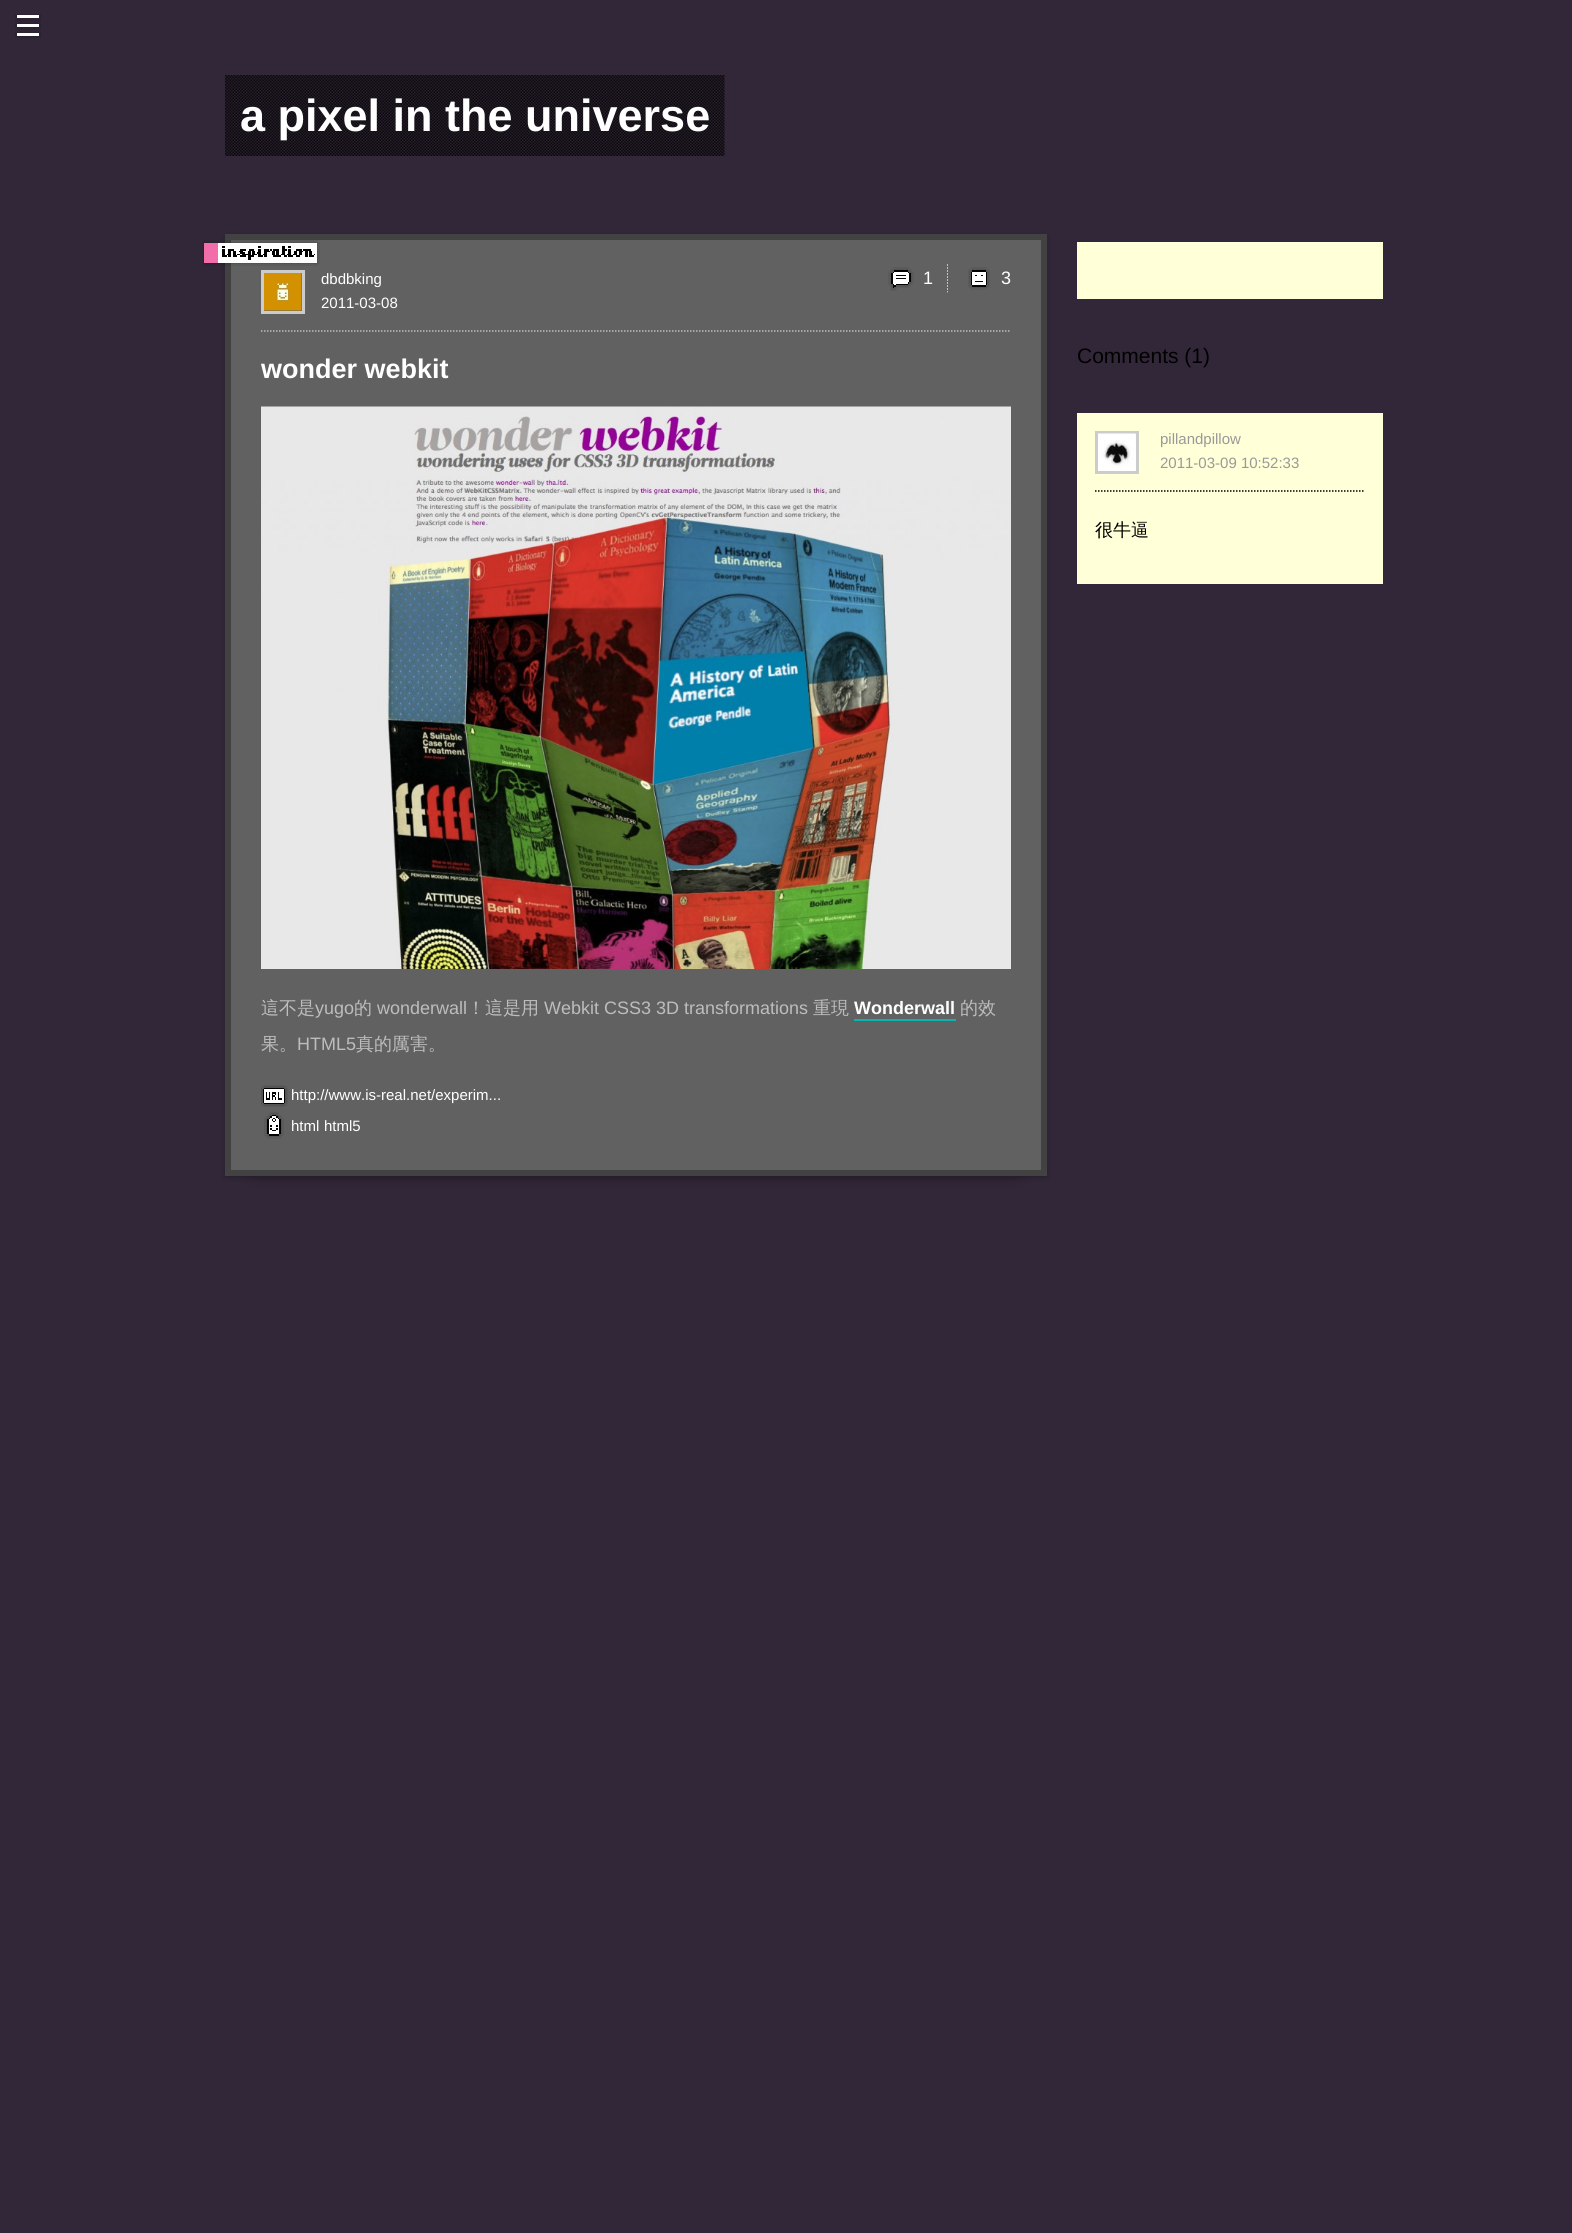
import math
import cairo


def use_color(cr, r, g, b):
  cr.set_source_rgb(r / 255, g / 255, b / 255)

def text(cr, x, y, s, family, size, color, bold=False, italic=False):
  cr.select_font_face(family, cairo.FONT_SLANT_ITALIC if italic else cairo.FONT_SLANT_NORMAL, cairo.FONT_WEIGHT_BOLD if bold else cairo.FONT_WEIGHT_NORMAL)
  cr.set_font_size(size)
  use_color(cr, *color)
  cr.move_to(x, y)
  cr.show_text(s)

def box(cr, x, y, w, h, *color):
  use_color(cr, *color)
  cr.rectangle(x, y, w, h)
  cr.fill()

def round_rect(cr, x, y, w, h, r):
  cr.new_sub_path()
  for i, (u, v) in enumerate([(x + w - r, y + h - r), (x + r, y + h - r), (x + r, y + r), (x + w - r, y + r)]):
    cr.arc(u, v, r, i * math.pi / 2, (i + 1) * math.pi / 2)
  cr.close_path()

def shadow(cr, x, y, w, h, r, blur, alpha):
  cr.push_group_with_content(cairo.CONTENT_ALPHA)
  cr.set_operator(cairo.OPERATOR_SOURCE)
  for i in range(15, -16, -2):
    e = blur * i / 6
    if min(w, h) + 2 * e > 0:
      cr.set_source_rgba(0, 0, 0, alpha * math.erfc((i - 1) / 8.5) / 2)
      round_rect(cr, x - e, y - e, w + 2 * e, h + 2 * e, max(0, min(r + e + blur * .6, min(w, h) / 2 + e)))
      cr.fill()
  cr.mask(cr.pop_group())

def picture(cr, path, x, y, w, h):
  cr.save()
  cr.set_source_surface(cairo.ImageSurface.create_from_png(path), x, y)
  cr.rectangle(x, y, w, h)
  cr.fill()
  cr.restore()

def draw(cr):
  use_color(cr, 50, 39, 56)
  cr.paint()
  picture(cr, "img_01.png", 15, 14, 26, 24)
  picture(cr, "img_02.png", 225, 75, 500, 81)
  use_color(cr, 0, 0, 0)
  shadow(cr, 225, 236, 822, 942, 0, 3, 0.2)
  shadow(cr, 246, 705, 780, 465, 15, 11, 0.5)
  use_color(cr, 97, 97, 97)
  cr.rectangle(228, 237, 816, 936)
  cr.fill_preserve()
  use_color(cr, 66, 66, 66)
  cr.set_line_width(6)
  cr.stroke()
  picture(cr, "img_03.png", 203, 240, 117, 26)
  picture(cr, "img_04.png", 888, 267, 26, 24)
  picture(cr, "img_05.png", 947, 264, 1, 29)
  picture(cr, "img_06.png", 968, 267, 22, 23)
  cr.rectangle(262.5, 271.5, 41, 41)
  use_color(cr, 204, 204, 204)
  cr.set_line_width(3)
  cr.stroke()
  picture(cr, "img_07.png", 264, 273, 38, 38)
  cr.new_path()
  cr.move_to(261, 331)
  cr.line_to(1011, 331)
  use_color(cr, 189, 189, 189)
  cr.set_line_width(1.5)
  cr.set_dash([1.5, 1.5])
  cr.stroke()
  picture(cr, "img_08.png", 261, 406, 750, 563)
  box(cr, 854, 1019, 102, 2, 9, 181, 175)
  picture(cr, "img_09.png", 261, 1085, 27, 22)
  picture(cr, "img_10.png", 264, 1112, 20, 27)
  box(cr, 1077, 242, 306, 57, 255, 255, 216)
  box(cr, 1077, 413, 306, 171, 255, 255, 216)
  cr.rectangle(1096.5, 432.5, 41, 40)
  use_color(cr, 204, 204, 204)
  cr.set_line_width(3)
  cr.set_dash([])
  cr.stroke()
  picture(cr, "img_11.png", 1098, 433, 38, 38)
  cr.new_path()
  cr.move_to(1095, 491)
  cr.line_to(1365, 491)
  use_color(cr, 0, 0, 0)
  cr.set_line_width(1.5)
  cr.set_dash([1.5, 1.5])
  cr.stroke()
  text(cr, 240, 131, "a pixel in the universe", "Liberation Sans", 45, (255, 255, 255), bold=True)
  text(cr, 321, 284, "dbdbking", "Liberation Sans", 15, (255, 255, 255))
  text(cr, 923, 284, "1", "Liberation Sans", 18, (255, 255, 255))
  text(cr, 1001, 284, "3", "Liberation Sans", 18, (255, 255, 255))
  text(cr, 321, 308, "2011-03-08", "Liberation Sans", 15, (255, 255, 255))
  text(cr, 261, 378, "wonder webkit", "Liberation Sans", 27, (255, 255, 255), bold=True)
  text(cr, 261, 1014, "這不是", "WenQuanYi Zen Hei Medium", 18, (189, 189, 189))
  text(cr, 315, 1014, "yugo", "Liberation Sans", 18, (189, 189, 189))
  text(cr, 354, 1014, "的", "WenQuanYi Zen Hei Medium", 18, (189, 189, 189))
  text(cr, 377, 1014, "wonderwall", "Liberation Sans", 18, (189, 189, 189))
  text(cr, 467, 1014, "！這是用", "WenQuanYi Zen Hei Medium", 18, (189, 189, 189))
  text(cr, 544, 1014, "Webkit CSS3 3D transformations", "Liberation Sans", 18, (189, 189, 189))
  text(cr, 813, 1014, "重現", "WenQuanYi Zen Hei Medium", 18, (189, 189, 189))
  text(cr, 854, 1014, "Wonderwall", "Liberation Sans", 18, (255, 255, 255), bold=True)
  text(cr, 960, 1014, "的效", "WenQuanYi Zen Hei Medium", 18, (189, 189, 189))
  text(cr, 261, 1050, "果。", "WenQuanYi Zen Hei Medium", 18, (189, 189, 189))
  text(cr, 297, 1050, "HTML5", "Liberation Sans", 18, (189, 189, 189))
  text(cr, 356, 1050, "真的厲害。", "WenQuanYi Zen Hei Medium", 18, (189, 189, 189))
  text(cr, 291, 1100, "http://www.is-real.net/experim...", "Liberation Sans", 15, (255, 255, 255))
  text(cr, 291, 1131, "html", "Liberation Sans", 15, (255, 255, 255))
  text(cr, 324, 1131, "html5", "Liberation Sans", 15, (255, 255, 255))
  text(cr, 1077, 363, "Comments (1)", "Liberation Sans", 21, (0, 0, 0))
  text(cr, 1160, 444, "pillandpillow", "Liberation Sans", 15, (153, 153, 153))
  text(cr, 1160, 468, "2011-03-09 10:52:33", "Liberation Sans", 15, (153, 153, 153))
  text(cr, 1095, 536, "很牛逼", "WenQuanYi Zen Hei Medium", 18, (0, 0, 0))


surface = cairo.ImageSurface(cairo.FORMAT_RGB24, 1572, 2233)
cr = cairo.Context(surface)
options = cairo.FontOptions()
options.set_hint_metrics(cairo.HINT_METRICS_OFF)
options.set_hint_style(cairo.HINT_STYLE_NONE)
cr.set_font_options(options)
cr.set_miter_limit(4)
draw(cr)
surface.write_to_png("out.png")
